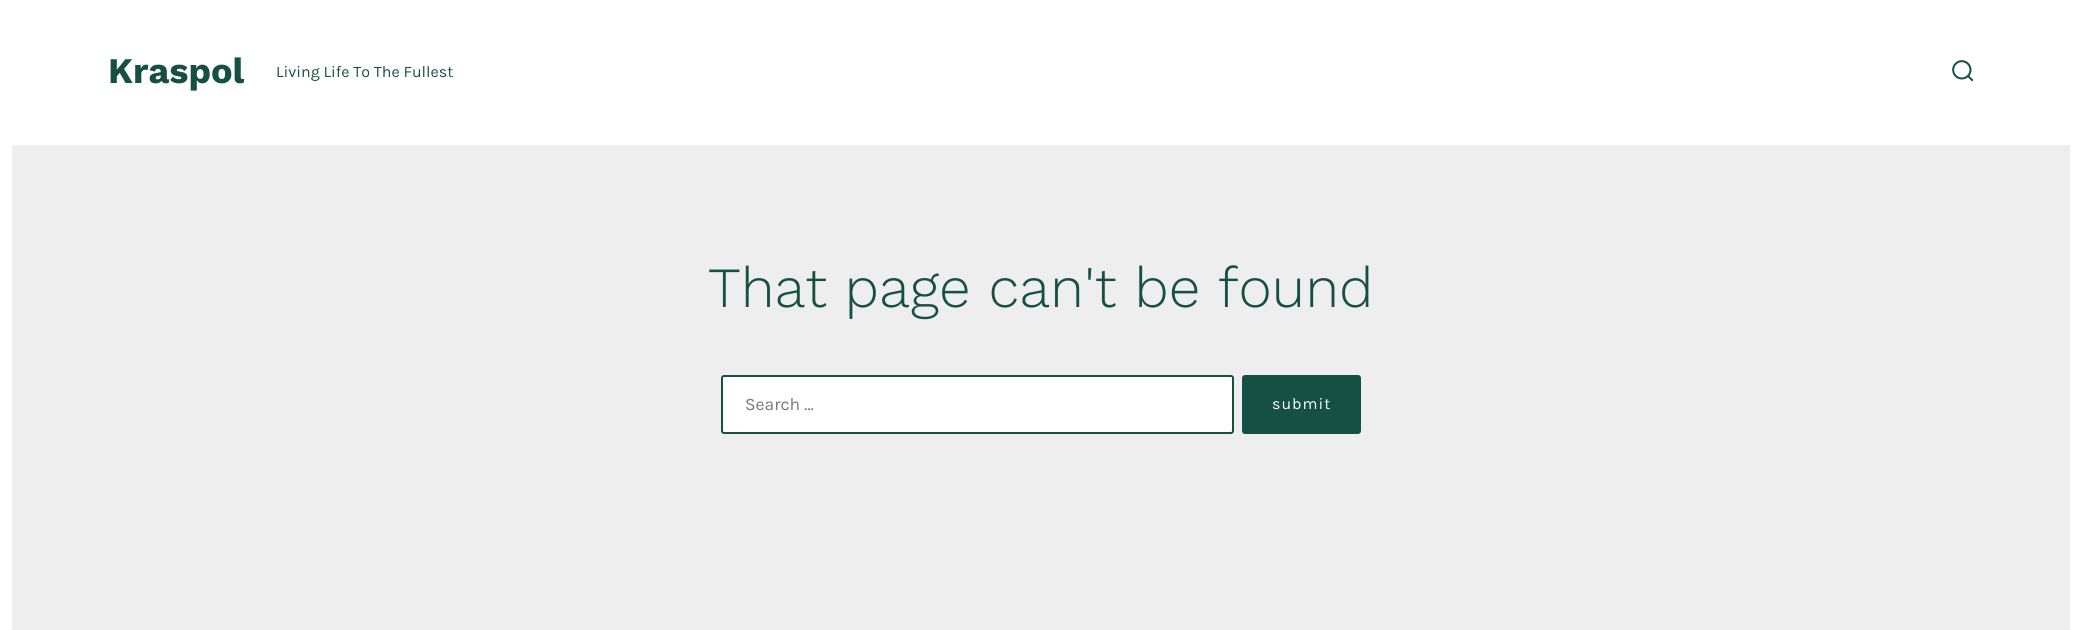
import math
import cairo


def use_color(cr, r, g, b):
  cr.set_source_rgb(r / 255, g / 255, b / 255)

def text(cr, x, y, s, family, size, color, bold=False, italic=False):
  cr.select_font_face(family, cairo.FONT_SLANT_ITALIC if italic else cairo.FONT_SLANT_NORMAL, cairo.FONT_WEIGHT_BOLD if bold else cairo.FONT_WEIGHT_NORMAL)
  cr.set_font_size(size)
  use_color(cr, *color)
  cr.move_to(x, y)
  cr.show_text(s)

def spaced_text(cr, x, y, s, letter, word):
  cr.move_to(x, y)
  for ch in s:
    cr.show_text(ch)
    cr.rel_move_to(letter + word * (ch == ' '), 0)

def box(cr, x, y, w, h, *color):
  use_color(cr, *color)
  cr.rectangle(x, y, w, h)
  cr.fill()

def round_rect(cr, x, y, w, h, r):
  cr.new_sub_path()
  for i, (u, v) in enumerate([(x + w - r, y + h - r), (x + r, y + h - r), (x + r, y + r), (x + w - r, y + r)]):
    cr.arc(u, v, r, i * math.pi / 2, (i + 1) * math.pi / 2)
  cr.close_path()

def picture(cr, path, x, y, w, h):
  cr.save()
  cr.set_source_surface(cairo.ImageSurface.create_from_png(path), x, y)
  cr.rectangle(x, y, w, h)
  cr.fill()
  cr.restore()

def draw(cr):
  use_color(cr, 238, 238, 238)
  cr.paint()
  box(cr, 2070, 0, 12, 630, 255, 255, 255)
  box(cr, 0, 0, 12, 630, 255, 255, 255)
  box(cr, 12, 0, 2058, 145, 255, 255, 255)
  picture(cr, "img_01.png", 1952, 60, 22, 22)
  round_rect(cr, 722, 376, 511, 57, 2)
  cr.fill_preserve()
  use_color(cr, 22, 80, 67)
  cr.stroke()
  round_rect(cr, 1242, 375, 119, 59, 3)
  cr.fill()
  text(cr, 108, 83, "Kraspol", "Work Sans", 36, (22, 80, 67), bold=True)
  text(cr, 276, 77, "Living Life To The Fullest", "Karla", 16, (22, 80, 67))
  text(cr, 708, 307, "That page can't be found", "Work Sans Light", 56.75, (22, 80, 67))
  text(cr, 745, 410, "Search …", "Karla", 17.5, (120, 120, 120))
  cr.set_font_size(16)
  use_color(cr, 255, 255, 255)
  spaced_text(cr, 1272, 409, "submit", 1, 0)


surface = cairo.ImageSurface(cairo.FORMAT_RGB24, 2082, 630)
cr = cairo.Context(surface)
options = cairo.FontOptions()
options.set_hint_metrics(cairo.HINT_METRICS_OFF)
options.set_hint_style(cairo.HINT_STYLE_NONE)
cr.set_font_options(options)
cr.set_miter_limit(4)
draw(cr)
surface.write_to_png("out.png")
